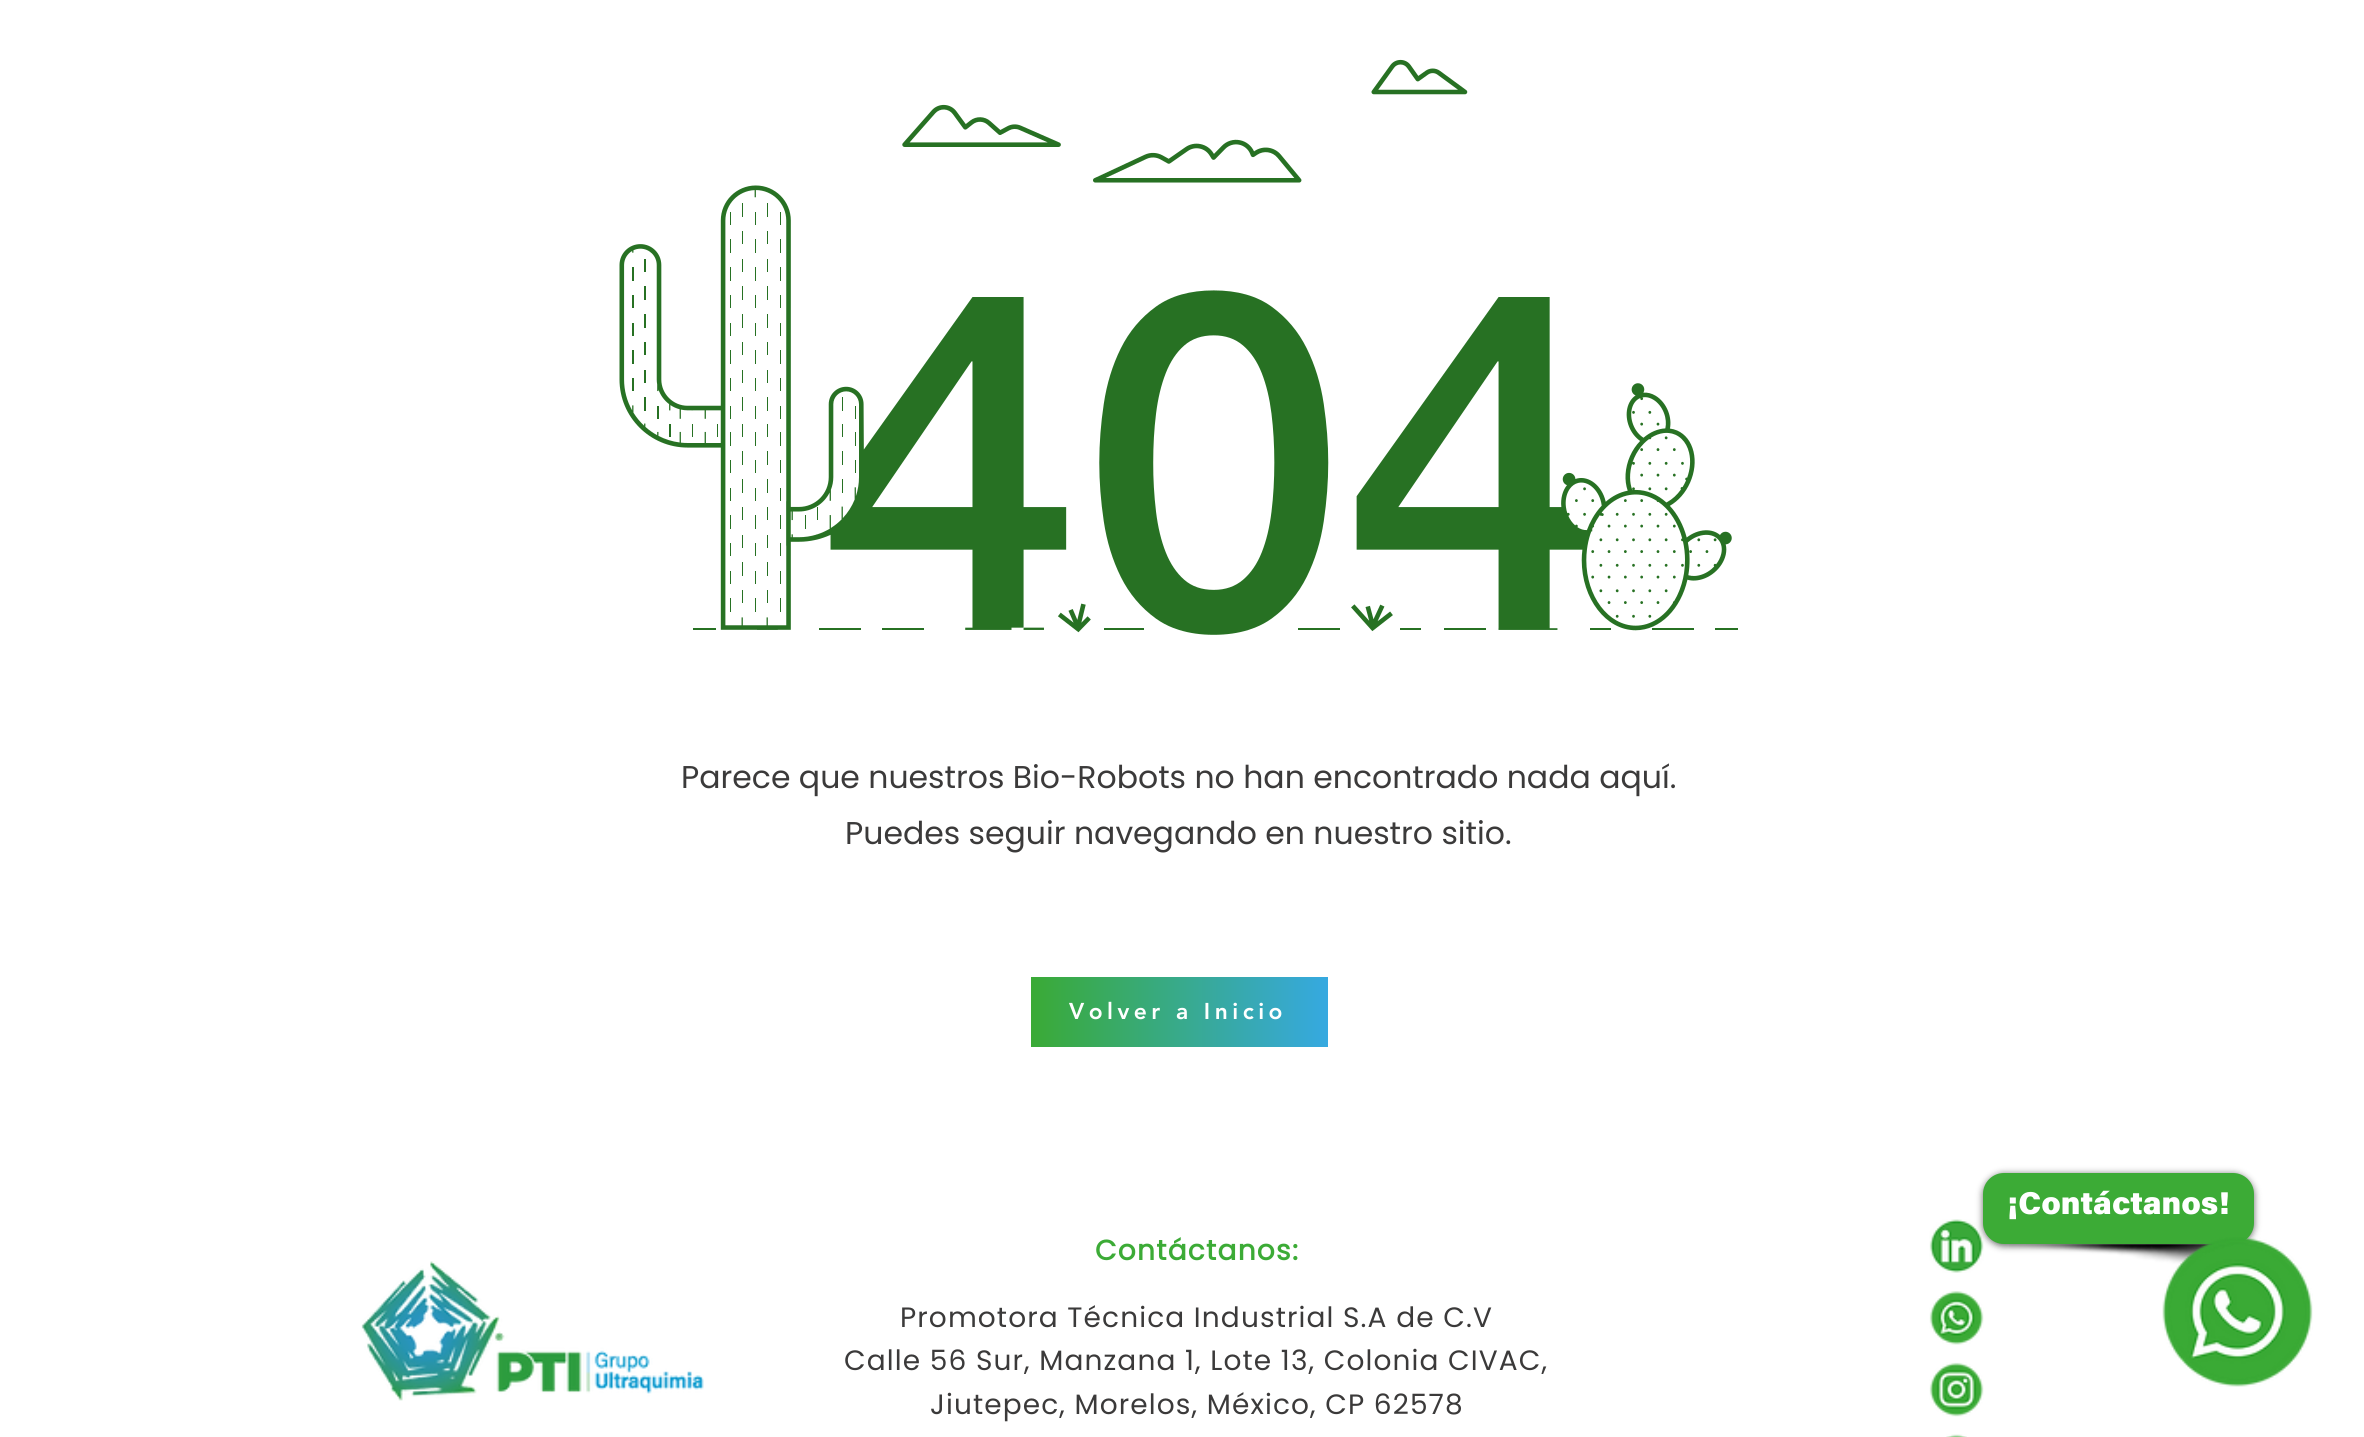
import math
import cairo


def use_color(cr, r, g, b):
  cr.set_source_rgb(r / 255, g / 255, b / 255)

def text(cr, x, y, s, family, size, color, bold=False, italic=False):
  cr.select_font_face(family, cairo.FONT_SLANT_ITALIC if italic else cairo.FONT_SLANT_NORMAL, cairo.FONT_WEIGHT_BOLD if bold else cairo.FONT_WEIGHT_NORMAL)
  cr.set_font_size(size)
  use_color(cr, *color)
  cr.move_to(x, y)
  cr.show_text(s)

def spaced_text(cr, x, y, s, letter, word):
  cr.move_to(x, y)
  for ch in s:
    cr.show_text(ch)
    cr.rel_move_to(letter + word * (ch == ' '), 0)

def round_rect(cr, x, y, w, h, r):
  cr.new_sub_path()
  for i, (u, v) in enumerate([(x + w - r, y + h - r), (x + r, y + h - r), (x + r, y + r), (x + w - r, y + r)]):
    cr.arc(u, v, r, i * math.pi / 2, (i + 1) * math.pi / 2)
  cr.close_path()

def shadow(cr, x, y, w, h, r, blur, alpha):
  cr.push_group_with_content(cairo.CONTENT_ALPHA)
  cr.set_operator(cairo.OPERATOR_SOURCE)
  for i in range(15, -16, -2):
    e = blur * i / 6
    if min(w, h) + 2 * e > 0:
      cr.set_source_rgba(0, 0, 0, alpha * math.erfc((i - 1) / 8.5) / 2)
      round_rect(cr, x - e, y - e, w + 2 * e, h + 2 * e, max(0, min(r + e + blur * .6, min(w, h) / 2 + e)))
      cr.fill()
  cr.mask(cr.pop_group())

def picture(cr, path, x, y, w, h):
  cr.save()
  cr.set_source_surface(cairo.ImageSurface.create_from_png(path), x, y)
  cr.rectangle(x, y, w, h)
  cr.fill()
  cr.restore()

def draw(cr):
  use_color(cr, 255, 255, 255)
  cr.paint()
  picture(cr, "img_01.png", 619, 59, 1119, 576)
  gradient = cairo.LinearGradient(1031, 1012, 1328, 1012)
  gradient.add_color_stop_rgba(0, 0.227, 0.667, 0.208, 1)
  gradient.add_color_stop_rgba(1, 0.212, 0.663, 0.882, 1)
  cr.set_source(gradient)
  cr.rectangle(1031, 977, 297, 70)
  cr.fill()
  picture(cr, "img_02.png", 2009, 1244, 250, 21)
  picture(cr, "img_04.png", 1929, 1219, 55, 54)
  use_color(cr, 0, 0, 0)
  shadow(cr, 1983, 1174, 271, 72, 21, 3.5, 0.6)
  use_color(cr, 60, 171, 54)
  round_rect(cr, 1983, 1173, 271, 71, 21)
  cr.fill()
  picture(cr, "img_03.png", 2162, 1237, 151, 150)
  picture(cr, "img_05.png", 1929, 1291, 55, 54)
  picture(cr, "img_06.png", 1929, 1362, 55, 55)
  picture(cr, "img_07.png", 1946, 1434, 21, 3)
  picture(cr, "img_08.png", 361, 1261, 343, 140)
  text(cr, 681, 788, "Parece que nuestros Bio-Robots no han encontrado nada aquí.", "Poppins", 31.5, (59, 58, 58))
  text(cr, 845, 844, "Puedes seguir navegando en nuestro sitio.", "Poppins", 31.5, (59, 58, 58))
  cr.select_font_face("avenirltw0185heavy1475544 Black")
  cr.set_font_size(22.75)
  use_color(cr, 255, 255, 255)
  spaced_text(cr, 1069, 1019, "Volver a Inicio", 4.5, 0)
  text(cr, 2008, 1214, "¡Contáctanos!", "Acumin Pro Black", 31.5, (255, 255, 255))
  cr.select_font_face("Poppins", cairo.FONT_SLANT_NORMAL, cairo.FONT_WEIGHT_BOLD)
  cr.set_font_size(28)
  use_color(cr, 60, 171, 54)
  spaced_text(cr, 1095, 1260, "Contáctanos", 1.25, 0)
  spaced_text(cr, 1292, 1260, ":", 1.1, 0)
  cr.select_font_face("Poppins")
  use_color(cr, 59, 58, 58)
  spaced_text(cr, 900, 1327, "Promotora Técnica Industrial S.A de C.V", 1.1, 0)
  spaced_text(cr, 844, 1370, "Calle 56 Sur, Manzana 1, Lote 13, Colonia CIVAC,", 1.1, 0)
  spaced_text(cr, 930, 1414, "Jiutepec, Morelos, México, CP 62578", 1.1, 0)


surface = cairo.ImageSurface(cairo.FORMAT_RGB24, 2364, 1437)
cr = cairo.Context(surface)
options = cairo.FontOptions()
options.set_hint_metrics(cairo.HINT_METRICS_OFF)
options.set_hint_style(cairo.HINT_STYLE_NONE)
cr.set_font_options(options)
cr.set_miter_limit(4)
draw(cr)
surface.write_to_png("out.png")
